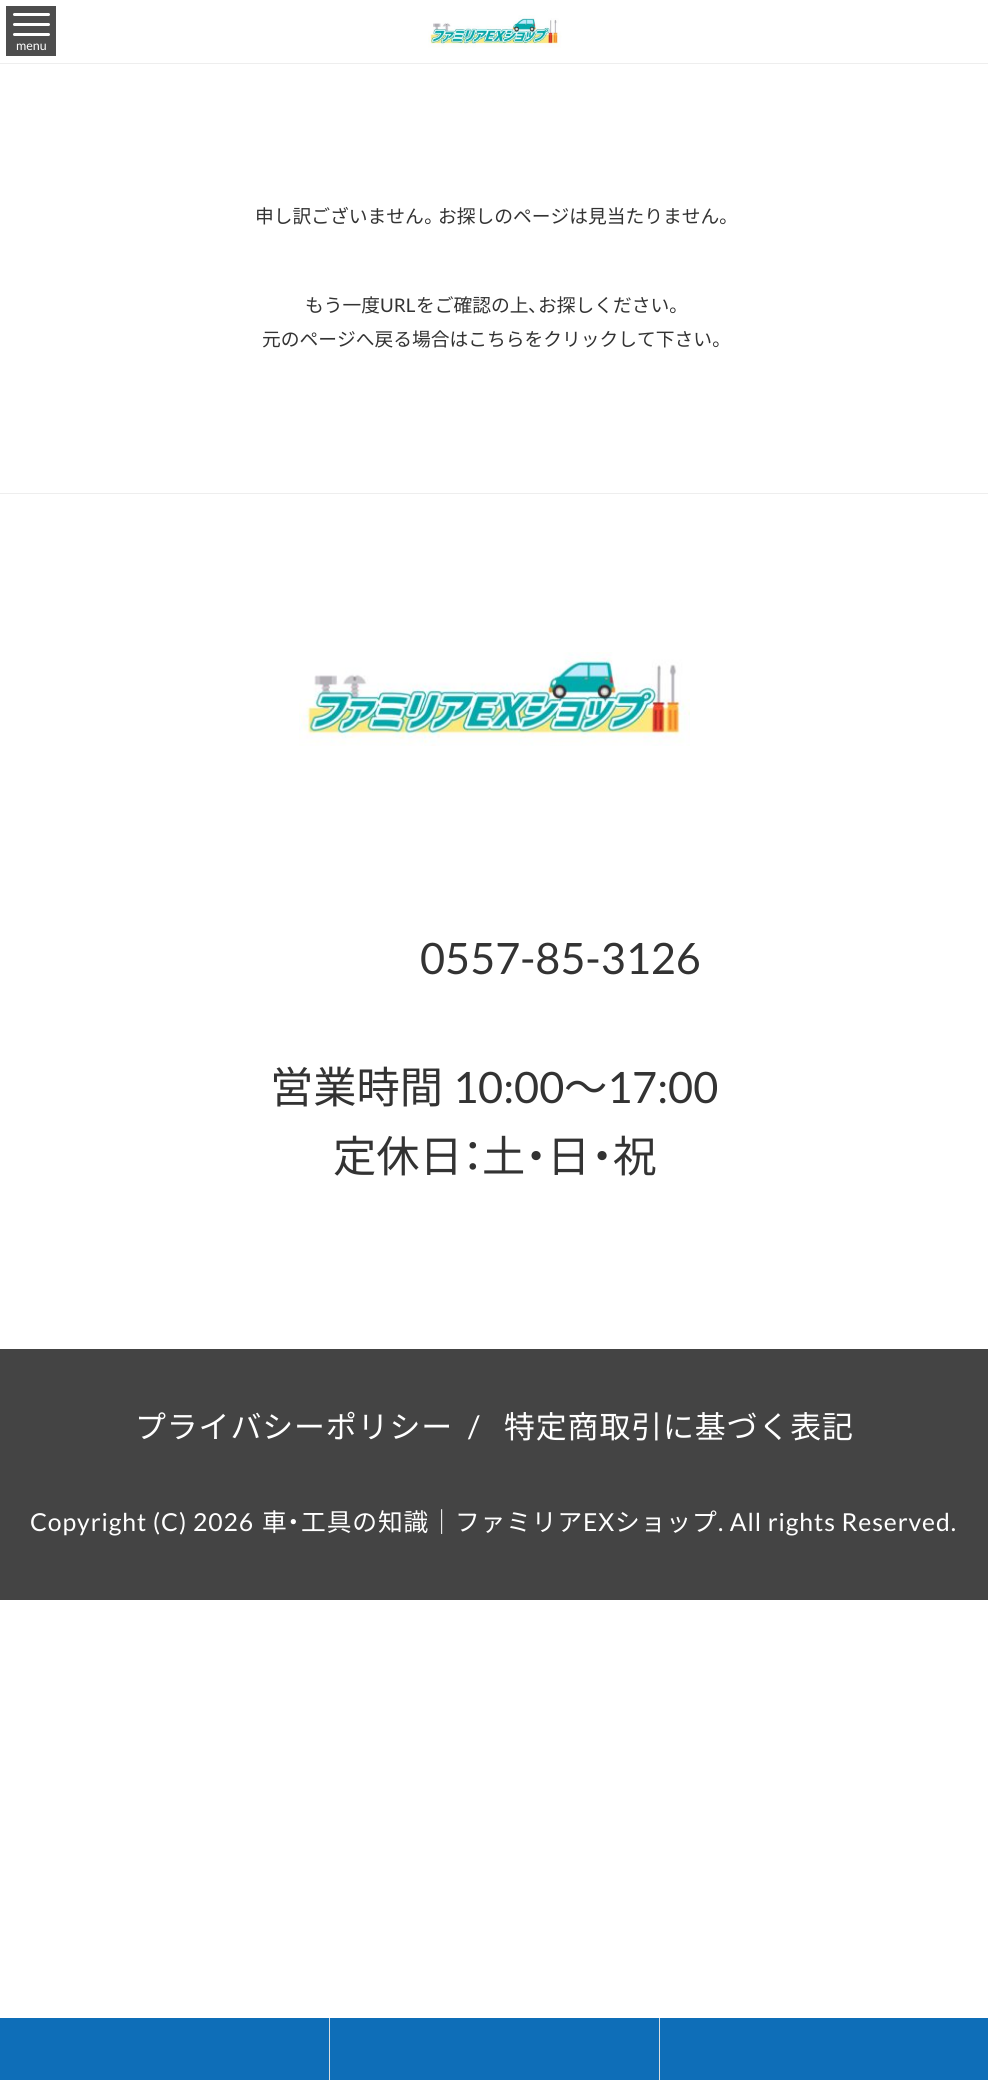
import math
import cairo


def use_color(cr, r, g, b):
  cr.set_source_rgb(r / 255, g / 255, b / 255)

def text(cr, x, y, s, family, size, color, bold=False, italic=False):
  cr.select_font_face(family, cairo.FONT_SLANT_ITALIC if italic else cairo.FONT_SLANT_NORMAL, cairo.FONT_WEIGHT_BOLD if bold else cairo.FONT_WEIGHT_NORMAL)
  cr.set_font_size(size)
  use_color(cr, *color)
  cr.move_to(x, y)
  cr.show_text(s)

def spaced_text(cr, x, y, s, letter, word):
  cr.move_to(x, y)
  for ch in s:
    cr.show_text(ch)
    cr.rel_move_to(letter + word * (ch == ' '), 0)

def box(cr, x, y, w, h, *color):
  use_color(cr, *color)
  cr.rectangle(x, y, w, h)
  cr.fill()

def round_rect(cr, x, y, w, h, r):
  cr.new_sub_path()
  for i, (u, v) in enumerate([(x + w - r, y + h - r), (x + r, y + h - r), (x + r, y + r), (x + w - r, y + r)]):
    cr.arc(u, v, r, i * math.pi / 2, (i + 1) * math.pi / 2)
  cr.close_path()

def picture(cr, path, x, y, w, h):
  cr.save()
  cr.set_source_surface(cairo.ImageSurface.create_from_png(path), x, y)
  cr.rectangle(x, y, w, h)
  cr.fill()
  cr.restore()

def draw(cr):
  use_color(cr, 255, 255, 255)
  cr.paint()
  box(cr, 0, 63, 988, 1, 238, 238, 238)
  box(cr, 6, 6, 50, 50, 77, 77, 77)
  use_color(cr, 255, 255, 255)
  round_rect(cr, 13, 13, 37, 3, 1.5)
  cr.fill()
  round_rect(cr, 13, 23, 37, 3, 1.5)
  cr.fill()
  round_rect(cr, 13, 33, 37, 3, 1.5)
  cr.fill()
  picture(cr, "img_01.png", 428, 15, 134, 33)
  box(cr, 0, 493, 988, 1, 238, 238, 238)
  picture(cr, "img_02.png", 299, 652, 391, 94)
  box(cr, 0, 1349, 988, 251, 68, 68, 68)
  box(cr, 0, 2018, 329, 62, 14, 110, 184)
  box(cr, 330, 2018, 329, 62, 14, 110, 184)
  box(cr, 329, 2018, 1, 62, 221, 221, 221)
  box(cr, 660, 2018, 328, 62, 14, 110, 184)
  box(cr, 659, 2018, 1, 62, 221, 221, 221)
  text(cr, 16, 50, "menu", "Lato", 12.5, (255, 255, 255))
  text(cr, 255, 223, "申し訳ございません", "Noto Sans JP", 18.75, (51, 51, 51))
  text(cr, 424, 223, "。", "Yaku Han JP", 18.75, (51, 51, 51))
  text(cr, 438, 223, "お探しのページは見当たりません", "Noto Sans JP", 18.75, (51, 51, 51))
  text(cr, 719, 223, "。", "Yaku Han JP", 18.75, (51, 51, 51))
  text(cr, 305, 312, "もう一度", "Noto Sans JP", 18.75, (51, 51, 51))
  text(cr, 380, 312, "URL", "Lato", 18.75, (51, 51, 51))
  text(cr, 416, 312, "をご確認の上", "Noto Sans JP", 18.75, (51, 51, 51))
  text(cr, 528, 312, "、", "Yaku Han JP", 18.75, (51, 51, 51))
  text(cr, 538, 312, "お探しください", "Noto Sans JP", 18.75, (51, 51, 51))
  text(cr, 669, 312, "。", "Yaku Han JP", 18.75, (51, 51, 51))
  text(cr, 262, 346, "元のページへ戻る場合はこちらをクリックして下さい", "Noto Sans JP", 18.75, (51, 51, 51))
  text(cr, 712, 346, "。", "Yaku Han JP", 18.75, (51, 51, 51))
  text(cr, 420, 974, "0557-85-3126", "Lato", 43.25, (51, 51, 51))
  text(cr, 270, 1103, "営業時間", "Noto Sans JP", 43.25, (51, 51, 51))
  text(cr, 453, 1103, "10:00", "Lato", 43.25, (51, 51, 51))
  text(cr, 564, 1103, "〜", "Noto Sans JP", 43.25, (51, 51, 51))
  text(cr, 607, 1103, "17:00", "Lato", 43.25, (51, 51, 51))
  text(cr, 333, 1172, "定休日", "Noto Sans JP", 43.25, (51, 51, 51))
  text(cr, 463, 1172, "：", "Yaku Han JP", 43.25, (51, 51, 51))
  text(cr, 482, 1172, "土", "Noto Sans JP", 43.25, (51, 51, 51))
  text(cr, 525, 1172, "・", "Yaku Han JP", 43.25, (51, 51, 51))
  text(cr, 547, 1172, "日", "Noto Sans JP", 43.25, (51, 51, 51))
  text(cr, 591, 1172, "・", "Yaku Han JP", 43.25, (51, 51, 51))
  text(cr, 613, 1172, "祝", "Noto Sans JP", 43.25, (51, 51, 51))
  cr.set_font_size(30.9)
  use_color(cr, 255, 255, 255)
  spaced_text(cr, 135, 1438, "プライバシーポリシー", 0.9, 0)
  cr.select_font_face("Lato")
  spaced_text(cr, 468, 1438, "/", 0.9, 0)
  cr.select_font_face("Noto Sans JP")
  spaced_text(cr, 504, 1438, "特定商取引に基づく表記", 0.9, 0)
  cr.select_font_face("Lato")
  cr.set_font_size(24.75)
  spaced_text(cr, 30, 1531, "Copyright (C) 2026", 0.9, 0)
  cr.select_font_face("Noto Sans JP")
  spaced_text(cr, 262, 1531, "車", 0.9, 0)
  cr.select_font_face("Yaku Han JP")
  spaced_text(cr, 287, 1531, "・", 0.9, 0)
  cr.select_font_face("Noto Sans JP")
  spaced_text(cr, 301, 1531, "工具の知識｜ファミリア", 0.9, 0)
  cr.select_font_face("Lato")
  spaced_text(cr, 583, 1531, "EX", 0.9, 0)
  cr.select_font_face("Noto Sans JP")
  spaced_text(cr, 615, 1531, "ショップ", 0.9, 0)
  cr.select_font_face("Lato")
  spaced_text(cr, 718, 1531, ". All rights Reserved.", 0.9, 0)


surface = cairo.ImageSurface(cairo.FORMAT_RGB24, 988, 2080)
cr = cairo.Context(surface)
options = cairo.FontOptions()
options.set_hint_metrics(cairo.HINT_METRICS_OFF)
options.set_hint_style(cairo.HINT_STYLE_NONE)
cr.set_font_options(options)
cr.set_miter_limit(4)
draw(cr)
surface.write_to_png("out.png")
